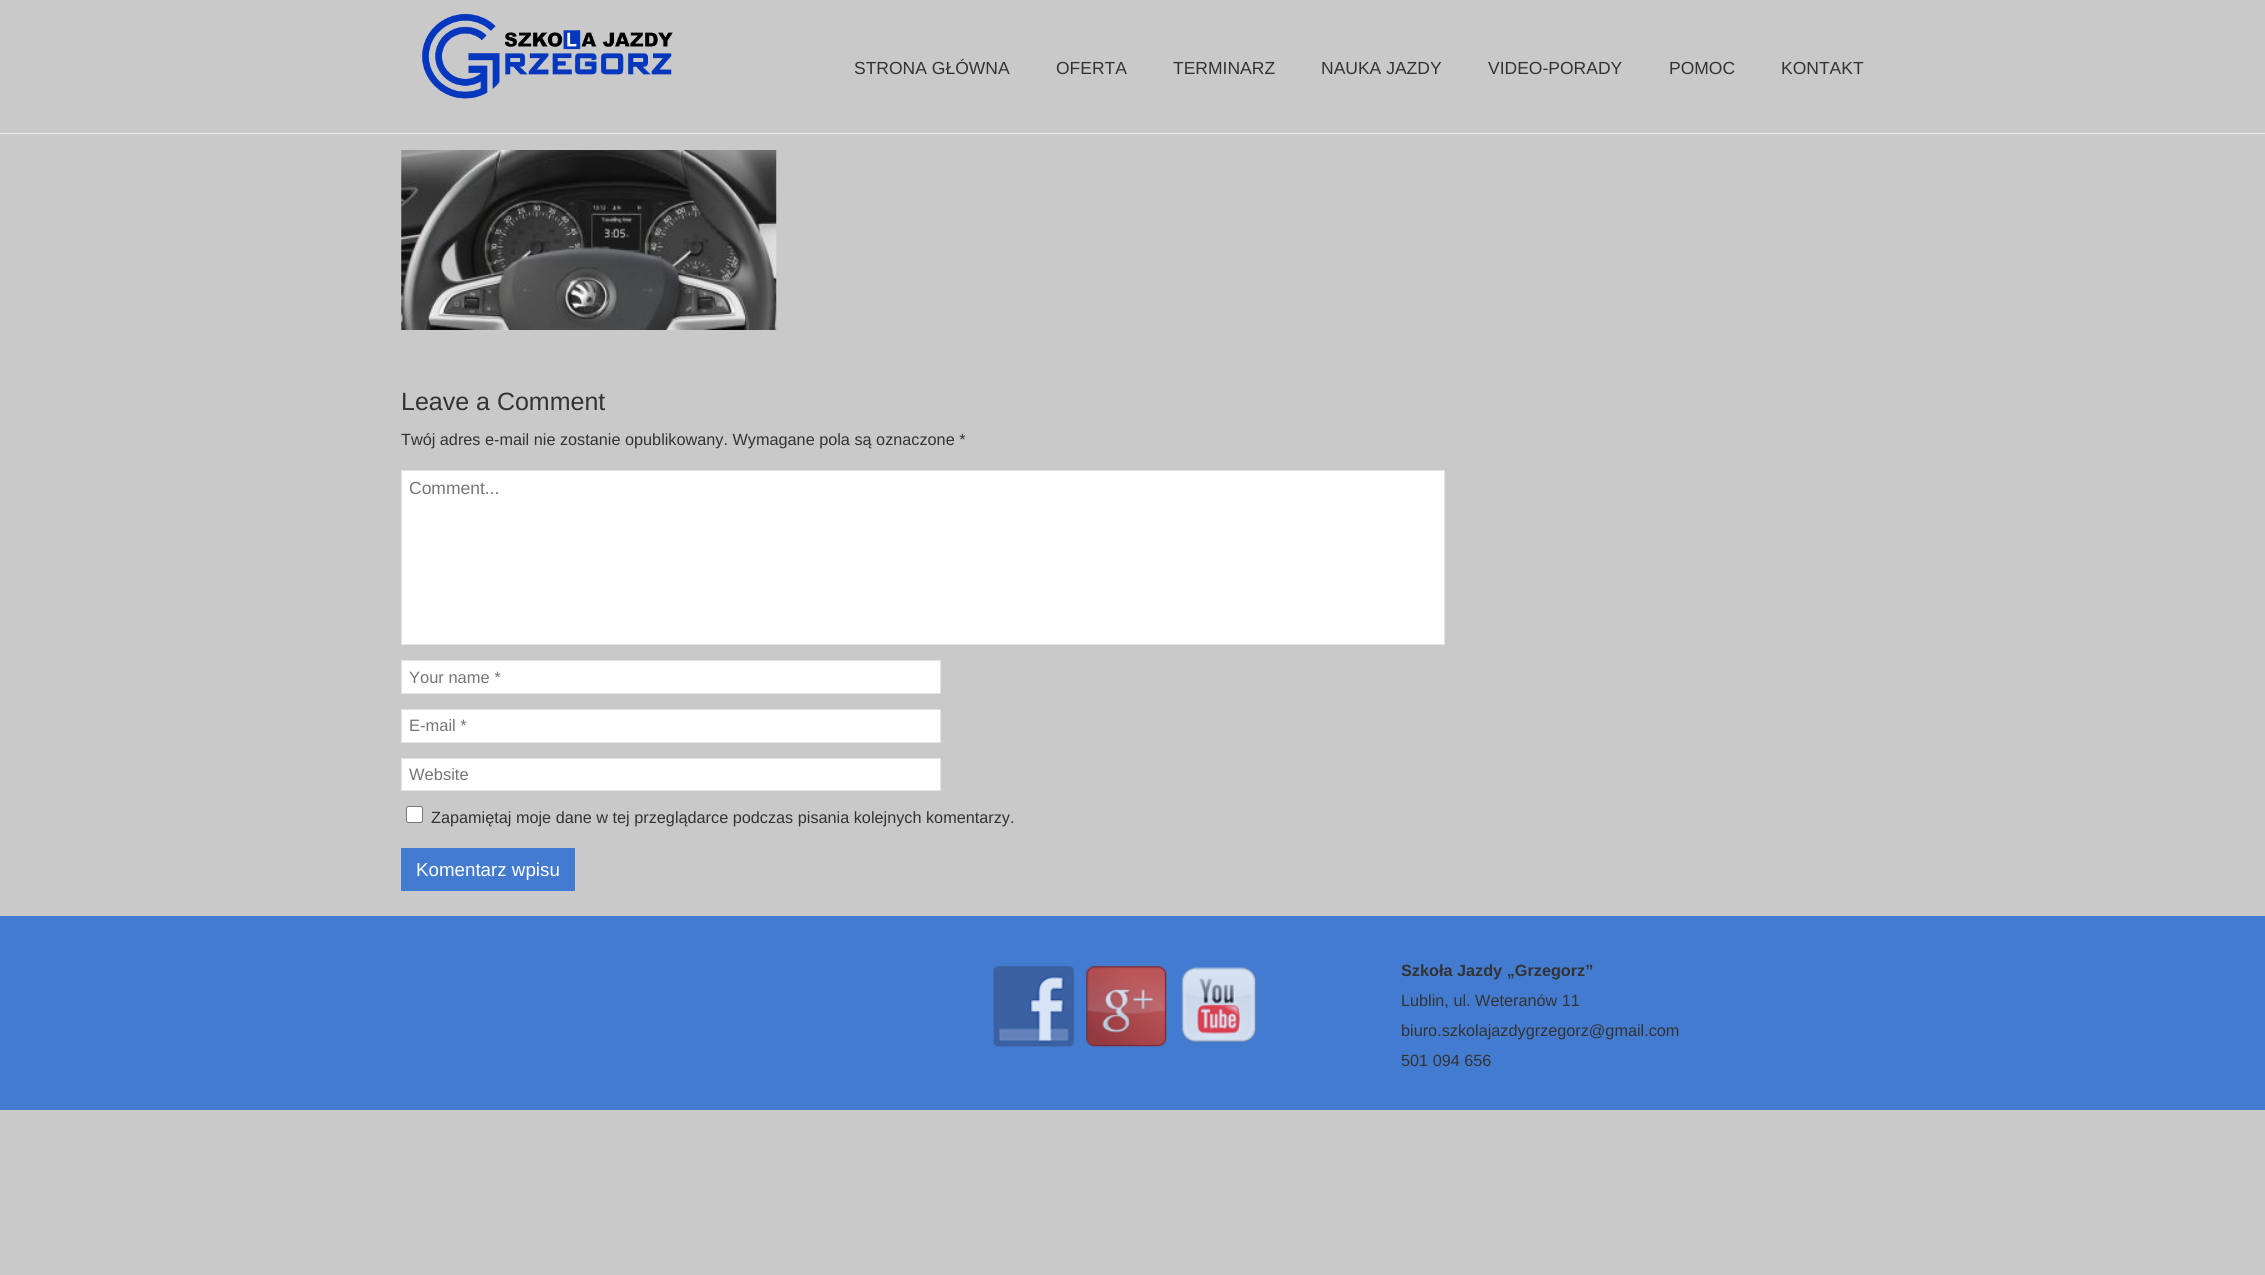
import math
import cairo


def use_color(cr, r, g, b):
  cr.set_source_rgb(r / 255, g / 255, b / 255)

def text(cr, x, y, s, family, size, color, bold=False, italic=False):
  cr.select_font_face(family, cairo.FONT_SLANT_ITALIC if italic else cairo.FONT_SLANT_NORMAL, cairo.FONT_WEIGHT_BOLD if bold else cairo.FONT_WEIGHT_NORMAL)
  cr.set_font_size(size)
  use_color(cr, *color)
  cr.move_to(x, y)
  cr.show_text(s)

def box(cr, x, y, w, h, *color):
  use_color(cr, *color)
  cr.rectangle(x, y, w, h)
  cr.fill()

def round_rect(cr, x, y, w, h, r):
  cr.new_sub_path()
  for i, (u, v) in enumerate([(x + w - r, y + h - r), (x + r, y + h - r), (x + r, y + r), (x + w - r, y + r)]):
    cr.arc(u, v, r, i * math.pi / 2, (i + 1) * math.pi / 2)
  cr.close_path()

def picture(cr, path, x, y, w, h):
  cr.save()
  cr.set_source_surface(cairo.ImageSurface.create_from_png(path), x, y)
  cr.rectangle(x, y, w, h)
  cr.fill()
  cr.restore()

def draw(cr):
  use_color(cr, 201, 201, 201)
  cr.paint()
  box(cr, 0, 133, 2265, 1, 235, 235, 235)
  picture(cr, "img_01.png", 421, 13, 252, 86)
  picture(cr, "img_02.png", 401, 150, 376, 180)
  use_color(cr, 255, 255, 255)
  cr.rectangle(401.5, 470.5, 1043, 174)
  cr.fill_preserve()
  use_color(cr, 227, 227, 227)
  cr.set_line_width(1)
  cr.stroke()
  use_color(cr, 255, 255, 255)
  cr.rectangle(401.5, 660.5, 539, 33)
  cr.fill_preserve()
  use_color(cr, 227, 227, 227)
  cr.stroke()
  use_color(cr, 255, 255, 255)
  cr.rectangle(401.5, 709.5, 539, 33)
  cr.fill_preserve()
  use_color(cr, 227, 227, 227)
  cr.stroke()
  use_color(cr, 255, 255, 255)
  cr.rectangle(401.5, 758.5, 539, 32)
  cr.fill_preserve()
  use_color(cr, 227, 227, 227)
  cr.stroke()
  use_color(cr, 255, 255, 255)
  round_rect(cr, 406.5, 806.5, 16, 16, 2)
  cr.fill_preserve()
  use_color(cr, 118, 118, 118)
  cr.stroke()
  box(cr, 401, 848, 174, 43, 67, 123, 208)
  box(cr, 0, 916, 2265, 194, 67, 123, 208)
  picture(cr, "img_03.png", 993, 966, 81, 81)
  picture(cr, "img_04.png", 1086, 966, 81, 81)
  picture(cr, "img_05.png", 1181, 967, 76, 77)
  text(cr, 854, 74, "STRONA GŁÓWNA", "Liberation Sans", 17.5, (51, 51, 51))
  text(cr, 1056, 74, "OFERTA", "Liberation Sans", 17.5, (51, 51, 51))
  text(cr, 1173, 74, "TERMINARZ", "Liberation Sans", 17.5, (51, 51, 51))
  text(cr, 1321, 74, "NAUKA JAZDY", "Liberation Sans", 17.5, (51, 51, 51))
  text(cr, 1488, 74, "VIDEO-PORADY", "Liberation Sans", 17.5, (51, 51, 51))
  text(cr, 1669, 74, "POMOC", "Liberation Sans", 17.5, (51, 51, 51))
  text(cr, 1781, 74, "KONTAKT", "Liberation Sans", 17.5, (51, 51, 51))
  text(cr, 401, 410, "Leave a Comment", "Arimo", 25, (51, 51, 51))
  text(cr, 401, 445, "Twój adres e-mail nie zostanie opublikowany. Wymagane pola są oznaczone *", "Liberation Sans", 16.25, (51, 51, 51))
  text(cr, 409, 494, "Comment...", "Liberation Sans", 17.5, (117, 117, 117))
  text(cr, 409, 683, "Your name *", "Liberation Sans", 16.5, (117, 117, 117))
  text(cr, 409, 731, "E-mail *", "Liberation Sans", 16.5, (117, 117, 117))
  text(cr, 409, 780, "Website", "Liberation Sans", 16.5, (117, 117, 117))
  text(cr, 431, 823, "Zapamiętaj moje dane w tej przeglądarce podczas pisania kolejnych komentarzy.", "Liberation Sans", 16.25, (51, 51, 51))
  text(cr, 416, 876, "Komentarz wpisu", "Liberation Sans", 18.75, (255, 255, 255))
  text(cr, 1401, 976, "Szkoła Jazdy „Grzegorz”", "Liberation Sans", 16.25, (51, 51, 51), bold=True)
  text(cr, 1401, 1006, "Lublin, ul. Weteranów 11", "Liberation Sans", 16.25, (51, 51, 51))
  text(cr, 1401, 1036, "biuro.szkolajazdygrzegorz@gmail.com", "Liberation Sans", 16.25, (51, 51, 51))
  text(cr, 1401, 1066, "501 094 656", "Liberation Sans", 16.25, (51, 51, 51))


surface = cairo.ImageSurface(cairo.FORMAT_RGB24, 2265, 1275)
cr = cairo.Context(surface)
options = cairo.FontOptions()
options.set_hint_metrics(cairo.HINT_METRICS_OFF)
options.set_hint_style(cairo.HINT_STYLE_NONE)
cr.set_font_options(options)
cr.set_miter_limit(4)
draw(cr)
surface.write_to_png("out.png")
